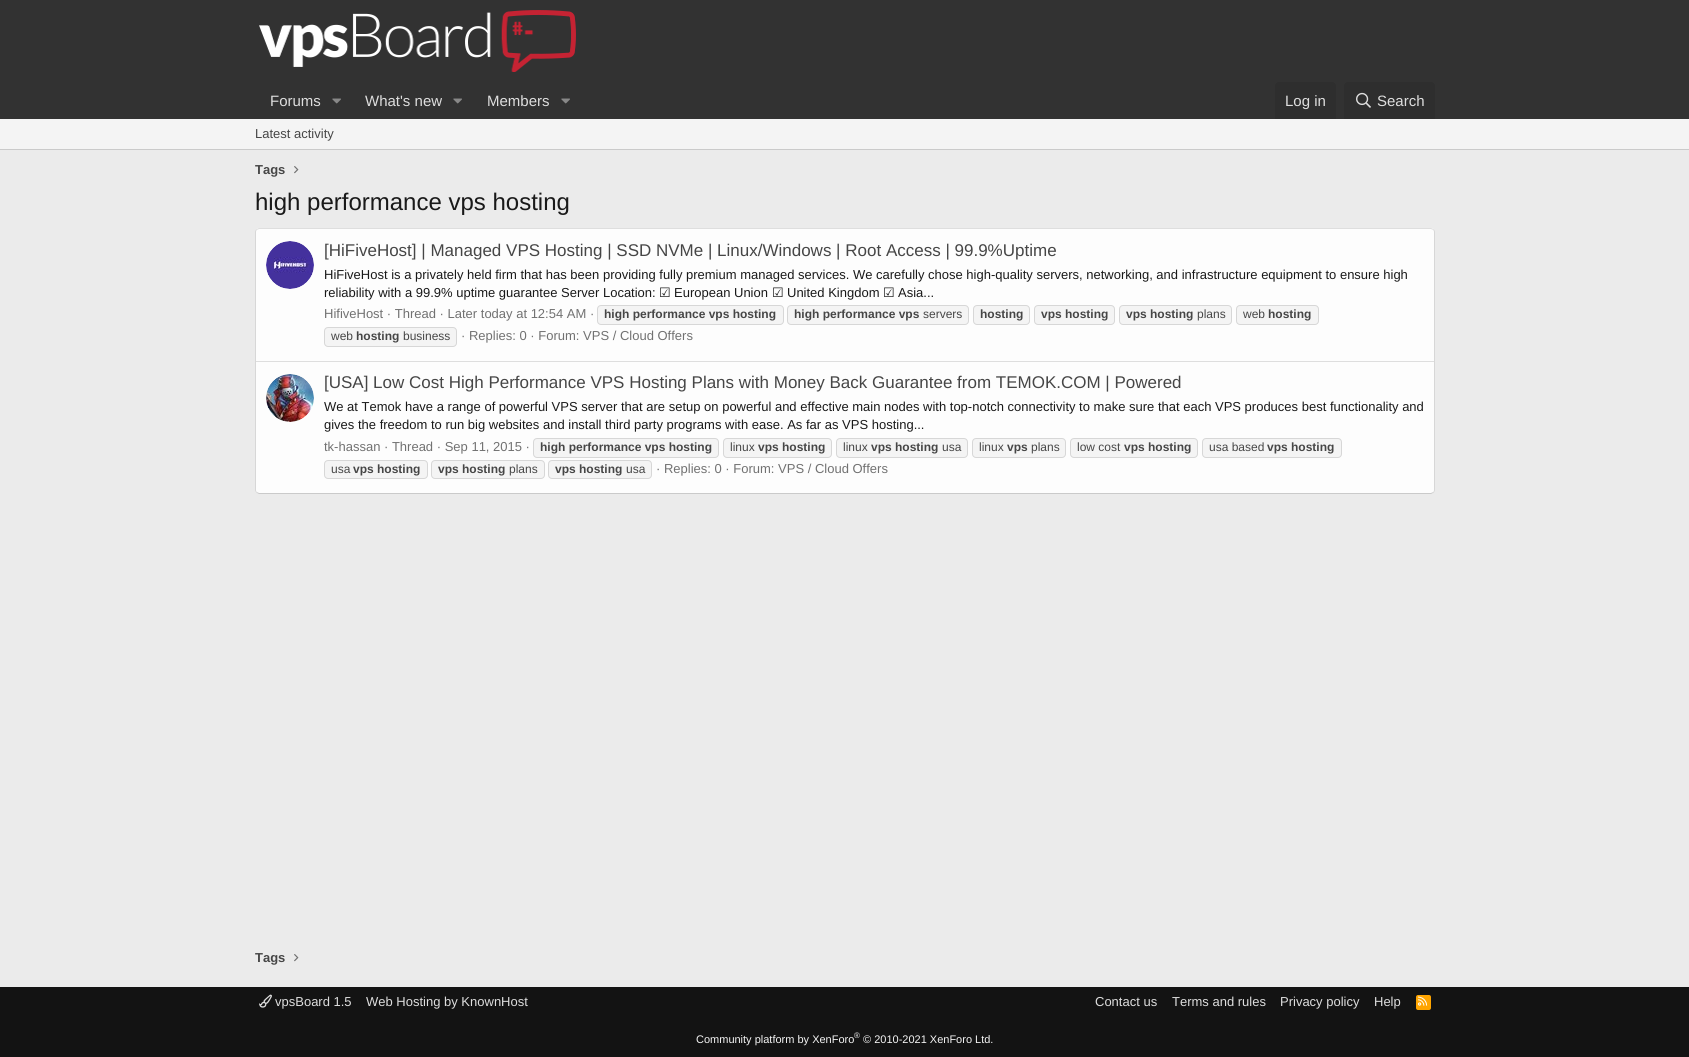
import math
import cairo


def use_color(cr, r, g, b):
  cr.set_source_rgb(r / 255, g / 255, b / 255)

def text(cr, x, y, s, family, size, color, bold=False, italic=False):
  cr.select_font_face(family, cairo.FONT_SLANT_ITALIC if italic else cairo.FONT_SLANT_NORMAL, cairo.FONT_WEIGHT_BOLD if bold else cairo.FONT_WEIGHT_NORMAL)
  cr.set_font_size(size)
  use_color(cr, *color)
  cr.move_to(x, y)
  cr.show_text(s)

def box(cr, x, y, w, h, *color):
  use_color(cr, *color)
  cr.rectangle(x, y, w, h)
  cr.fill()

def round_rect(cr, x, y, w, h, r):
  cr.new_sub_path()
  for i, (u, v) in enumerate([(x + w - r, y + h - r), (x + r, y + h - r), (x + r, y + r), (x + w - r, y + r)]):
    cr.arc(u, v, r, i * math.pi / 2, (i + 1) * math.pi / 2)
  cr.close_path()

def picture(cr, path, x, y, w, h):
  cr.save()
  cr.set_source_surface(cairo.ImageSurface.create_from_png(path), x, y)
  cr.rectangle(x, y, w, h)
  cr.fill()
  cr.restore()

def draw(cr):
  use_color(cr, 235, 235, 235)
  cr.paint()
  box(cr, 0, 0, 1689, 119, 50, 50, 50)
  picture(cr, "img_01.png", 259, 10, 317, 62)
  picture(cr, "img_02.png", 332, 98, 9, 6)
  picture(cr, "img_02.png", 453, 98, 9, 6)
  picture(cr, "img_02.png", 561, 98, 9, 6)
  use_color(cr, 46, 46, 46)
  cr.new_path()
  cr.move_to(1279, 82)
  cr.line_to(1332, 82)
  cr.curve_to(1334, 82, 1336, 84, 1336, 86)
  cr.line_to(1336, 119)
  cr.line_to(1275, 119)
  cr.line_to(1275, 86)
  cr.curve_to(1275, 84, 1277, 82, 1279, 82)
  cr.close_path()
  cr.fill()
  cr.new_path()
  cr.move_to(1348, 82)
  cr.line_to(1431, 82)
  cr.curve_to(1433, 82, 1435, 84, 1435, 86)
  cr.line_to(1435, 119)
  cr.line_to(1344, 119)
  cr.line_to(1344, 86)
  cr.curve_to(1344, 84, 1346, 82, 1348, 82)
  cr.close_path()
  cr.fill()
  picture(cr, "img_03.png", 1356, 92, 15, 16)
  box(cr, 0, 119, 1689, 30, 244, 244, 244)
  box(cr, 0, 149, 1689, 1, 202, 202, 202)
  picture(cr, "img_04.png", 294, 166, 5, 8)
  use_color(cr, 253, 253, 253)
  round_rect(cr, 255, 228, 1180, 266, 4)
  cr.fill()
  cr.new_path()
  cr.move_to(256.5, 229.5)
  cr.line_to(259, 228.5)
  cr.line_to(1431, 228.5)
  cr.line_to(1433.5, 229.5)
  use_color(cr, 222, 222, 222)
  cr.set_line_width(1)
  cr.stroke()
  cr.new_path()
  cr.move_to(1433.5, 229.5)
  cr.curve_to(1434, 230, 1434.5, 231, 1434.5, 232)
  cr.line_to(1434.5, 490)
  cr.curve_to(1434.5, 491, 1434, 492, 1433.5, 492.5)
  use_color(cr, 215, 215, 215)
  cr.stroke()
  cr.new_path()
  cr.move_to(1433.5, 492.5)
  cr.line_to(1431, 493.5)
  cr.line_to(259, 493.5)
  cr.line_to(256.5, 492.5)
  use_color(cr, 202, 202, 202)
  cr.stroke()
  cr.new_path()
  cr.move_to(256.5, 492.5)
  cr.curve_to(256, 492, 255.5, 491, 255.5, 490)
  cr.line_to(255.5, 232)
  cr.curve_to(255.5, 231, 256, 230, 256.5, 229.5)
  use_color(cr, 215, 215, 215)
  cr.stroke()
  picture(cr, "img_05.png", 266, 241, 48, 48)
  use_color(cr, 244, 244, 244)
  round_rect(cr, 597.5, 305.5, 186, 19, 3.5)
  cr.fill_preserve()
  use_color(cr, 215, 215, 215)
  cr.stroke()
  use_color(cr, 244, 244, 244)
  round_rect(cr, 787.5, 305.5, 181, 19, 3.5)
  cr.fill_preserve()
  use_color(cr, 215, 215, 215)
  cr.stroke()
  use_color(cr, 244, 244, 244)
  round_rect(cr, 973.5, 305.5, 56, 19, 3.5)
  cr.fill_preserve()
  use_color(cr, 215, 215, 215)
  cr.stroke()
  use_color(cr, 244, 244, 244)
  round_rect(cr, 1034.5, 305.5, 80, 19, 3.5)
  cr.fill_preserve()
  use_color(cr, 215, 215, 215)
  cr.stroke()
  use_color(cr, 244, 244, 244)
  round_rect(cr, 1119.5, 305.5, 112, 19, 3.5)
  cr.fill_preserve()
  use_color(cr, 215, 215, 215)
  cr.stroke()
  use_color(cr, 244, 244, 244)
  round_rect(cr, 1236.5, 305.5, 82, 19, 3.5)
  cr.fill_preserve()
  use_color(cr, 215, 215, 215)
  cr.stroke()
  use_color(cr, 244, 244, 244)
  round_rect(cr, 324.5, 327.5, 132, 19, 3.5)
  cr.fill_preserve()
  use_color(cr, 215, 215, 215)
  cr.stroke()
  box(cr, 256, 361, 1178, 1, 222, 222, 222)
  picture(cr, "img_06.png", 266, 374, 48, 48)
  use_color(cr, 244, 244, 244)
  round_rect(cr, 533.5, 438.5, 185, 19, 3.5)
  cr.fill_preserve()
  use_color(cr, 215, 215, 215)
  cr.stroke()
  use_color(cr, 244, 244, 244)
  round_rect(cr, 723.5, 438.5, 108, 19, 3.5)
  cr.fill_preserve()
  use_color(cr, 215, 215, 215)
  cr.stroke()
  use_color(cr, 244, 244, 244)
  round_rect(cr, 836.5, 438.5, 131, 19, 3.5)
  cr.fill_preserve()
  use_color(cr, 215, 215, 215)
  cr.stroke()
  use_color(cr, 244, 244, 244)
  round_rect(cr, 972.5, 438.5, 93, 19, 3.5)
  cr.fill_preserve()
  use_color(cr, 215, 215, 215)
  cr.stroke()
  use_color(cr, 244, 244, 244)
  round_rect(cr, 1070.5, 438.5, 127, 19, 3.5)
  cr.fill_preserve()
  use_color(cr, 215, 215, 215)
  cr.stroke()
  use_color(cr, 244, 244, 244)
  round_rect(cr, 1202.5, 438.5, 139, 19, 3.5)
  cr.fill_preserve()
  use_color(cr, 215, 215, 215)
  cr.stroke()
  use_color(cr, 244, 244, 244)
  round_rect(cr, 324.5, 460.5, 103, 18, 3.5)
  cr.fill_preserve()
  use_color(cr, 215, 215, 215)
  cr.stroke()
  use_color(cr, 244, 244, 244)
  round_rect(cr, 431.5, 460.5, 113, 18, 3.5)
  cr.fill_preserve()
  use_color(cr, 215, 215, 215)
  cr.stroke()
  use_color(cr, 244, 244, 244)
  round_rect(cr, 548.5, 460.5, 103, 18, 3.5)
  cr.fill_preserve()
  use_color(cr, 215, 215, 215)
  cr.stroke()
  picture(cr, "img_04.png", 294, 954, 5, 8)
  box(cr, 0, 987, 1689, 70, 19, 19, 19)
  picture(cr, "img_07.png", 259, 994, 13, 14)
  use_color(cr, 255, 165, 0)
  round_rect(cr, 1416, 995, 15, 15, 2)
  cr.fill()
  picture(cr, "img_08.png", 1418, 996, 10, 10)
  text(cr, 270, 106, "Forums", "Liberation Sans", 15, (222, 222, 222))
  text(cr, 365, 106, "What's new", "Liberation Sans", 15, (222, 222, 222))
  text(cr, 487, 106, "Members", "Liberation Sans", 15, (222, 222, 222))
  text(cr, 1285, 106, "Log in", "Liberation Sans", 15, (222, 222, 222))
  text(cr, 1377, 106, "Search", "Liberation Sans", 15, (222, 222, 222))
  text(cr, 255, 138, "Latest activity", "Liberation Sans", 13, (70, 70, 70))
  text(cr, 255, 174, "Tags", "Liberation Sans", 13, (70, 70, 70), bold=True)
  text(cr, 255, 210, "high performance vps hosting", "Liberation Sans", 24, (25, 25, 25))
  text(cr, 324, 256, "[HiFiveHost] | Managed VPS Hosting | SSD NVMe | Linux/Windows | Root Access | 99.9%Uptime", "Liberation Sans", 17, (70, 70, 70))
  text(cr, 324, 279, "HiFiveHost is a privately held firm that has been providing fully premium managed services. We carefully chose high-quality servers, networking, and infrastructure equipment to ensure high", "Liberation Sans", 13, (25, 25, 25))
  text(cr, 324, 297, "reliability with a 99.9% uptime guarantee Server Location:", "Liberation Sans", 13, (25, 25, 25))
  text(cr, 659, 297, "☑", "DejaVu Sans", 13, (25, 25, 25))
  text(cr, 674, 297, "European Union", "Liberation Sans", 13, (25, 25, 25))
  text(cr, 772, 297, "☑", "DejaVu Sans", 13, (25, 25, 25))
  text(cr, 787, 297, "United Kingdom", "Liberation Sans", 13, (25, 25, 25))
  text(cr, 883, 297, "☑", "DejaVu Sans", 13, (25, 25, 25))
  text(cr, 898, 297, "Asia...", "Liberation Sans", 13, (25, 25, 25))
  text(cr, 324, 318, "HifiveHost · Thread · Later today at 12:54 AM ·", "Liberation Sans", 13, (113, 113, 113))
  text(cr, 604, 318, "high performance vps hosting", "Liberation Sans", 12, (70, 70, 70), bold=True)
  text(cr, 794, 318, "high performance vps", "Liberation Sans", 12, (70, 70, 70), bold=True)
  text(cr, 923, 318, "servers", "Liberation Sans", 12, (70, 70, 70))
  text(cr, 980, 318, "hosting", "Liberation Sans", 12, (70, 70, 70), bold=True)
  text(cr, 1041, 318, "vps hosting", "Liberation Sans", 12, (70, 70, 70), bold=True)
  text(cr, 1126, 318, "vps hosting", "Liberation Sans", 12, (70, 70, 70), bold=True)
  text(cr, 1197, 318, "plans", "Liberation Sans", 12, (70, 70, 70))
  text(cr, 1243, 318, "web", "Liberation Sans", 12, (70, 70, 70))
  text(cr, 1268, 318, "hosting", "Liberation Sans", 12, (70, 70, 70), bold=True)
  text(cr, 331, 340, "web", "Liberation Sans", 12, (70, 70, 70))
  text(cr, 356, 340, "hosting", "Liberation Sans", 12, (70, 70, 70), bold=True)
  text(cr, 403, 340, "business", "Liberation Sans", 12, (70, 70, 70))
  text(cr, 461, 340, "· Replies: 0 · Forum: VPS / Cloud Offers", "Liberation Sans", 13, (113, 113, 113))
  text(cr, 324, 388, "[USA] Low Cost High Performance VPS Hosting Plans with Money Back Guarantee from TEMOK.COM | Powered", "Liberation Sans", 17, (70, 70, 70))
  text(cr, 324, 411, "We at Temok have a range of powerful VPS server that are setup on powerful and effective main nodes with top-notch connectivity to make sure that each VPS produces best functionality and", "Liberation Sans", 13, (25, 25, 25))
  text(cr, 324, 429, "gives the freedom to run big websites and install third party programs with ease. As far as VPS hosting...", "Liberation Sans", 13, (25, 25, 25))
  text(cr, 324, 451, "tk-hassan · Thread · Sep 11, 2015 ·", "Liberation Sans", 13, (113, 113, 113))
  text(cr, 540, 451, "high performance vps hosting", "Liberation Sans", 12, (70, 70, 70), bold=True)
  text(cr, 730, 451, "linux", "Liberation Sans", 12, (70, 70, 70))
  text(cr, 758, 451, "vps hosting", "Liberation Sans", 12, (70, 70, 70), bold=True)
  text(cr, 843, 451, "linux", "Liberation Sans", 12, (70, 70, 70))
  text(cr, 871, 451, "vps hosting", "Liberation Sans", 12, (70, 70, 70), bold=True)
  text(cr, 942, 451, "usa", "Liberation Sans", 12, (70, 70, 70))
  text(cr, 979, 451, "linux", "Liberation Sans", 12, (70, 70, 70))
  text(cr, 1007, 451, "vps", "Liberation Sans", 12, (70, 70, 70), bold=True)
  text(cr, 1031, 451, "plans", "Liberation Sans", 12, (70, 70, 70))
  text(cr, 1077, 451, "low cost", "Liberation Sans", 12, (70, 70, 70))
  text(cr, 1124, 451, "vps hosting", "Liberation Sans", 12, (70, 70, 70), bold=True)
  text(cr, 1209, 451, "usa based", "Liberation Sans", 12, (70, 70, 70))
  text(cr, 1267, 451, "vps hosting", "Liberation Sans", 12, (70, 70, 70), bold=True)
  text(cr, 331, 473, "usa", "Liberation Sans", 12, (70, 70, 70))
  text(cr, 353, 473, "vps hosting", "Liberation Sans", 12, (70, 70, 70), bold=True)
  text(cr, 438, 473, "vps hosting", "Liberation Sans", 12, (70, 70, 70), bold=True)
  text(cr, 509, 473, "plans", "Liberation Sans", 12, (70, 70, 70))
  text(cr, 555, 473, "vps hosting", "Liberation Sans", 12, (70, 70, 70), bold=True)
  text(cr, 626, 473, "usa", "Liberation Sans", 12, (70, 70, 70))
  text(cr, 656, 473, "· Replies: 0 · Forum: VPS / Cloud Offers", "Liberation Sans", 13, (113, 113, 113))
  text(cr, 255, 962, "Tags", "Liberation Sans", 13, (70, 70, 70), bold=True)
  text(cr, 275, 1006, "vpsBoard 1.5", "Liberation Sans", 13, (222, 222, 222))
  text(cr, 366, 1006, "Web Hosting by KnownHost", "Liberation Sans", 13, (222, 222, 222))
  text(cr, 1095, 1006, "Contact us", "Liberation Sans", 13, (222, 222, 222))
  text(cr, 1172, 1006, "Terms and rules", "Liberation Sans", 13, (222, 222, 222))
  text(cr, 1280, 1006, "Privacy policy", "Liberation Sans", 13, (222, 222, 222))
  text(cr, 1374, 1006, "Help", "Liberation Sans", 13, (222, 222, 222))
  text(cr, 696, 1043, "Community platform by XenForo", "Liberation Sans", 11, (245, 245, 245))
  text(cr, 854, 1038, "®", "Liberation Sans", 8, (245, 245, 245))
  text(cr, 863, 1043, "© 2010-2021 XenForo Ltd.", "Liberation Sans", 11, (245, 245, 245))


surface = cairo.ImageSurface(cairo.FORMAT_RGB24, 1689, 1057)
cr = cairo.Context(surface)
options = cairo.FontOptions()
options.set_hint_metrics(cairo.HINT_METRICS_OFF)
options.set_hint_style(cairo.HINT_STYLE_NONE)
cr.set_font_options(options)
cr.set_miter_limit(4)
draw(cr)
surface.write_to_png("out.png")
